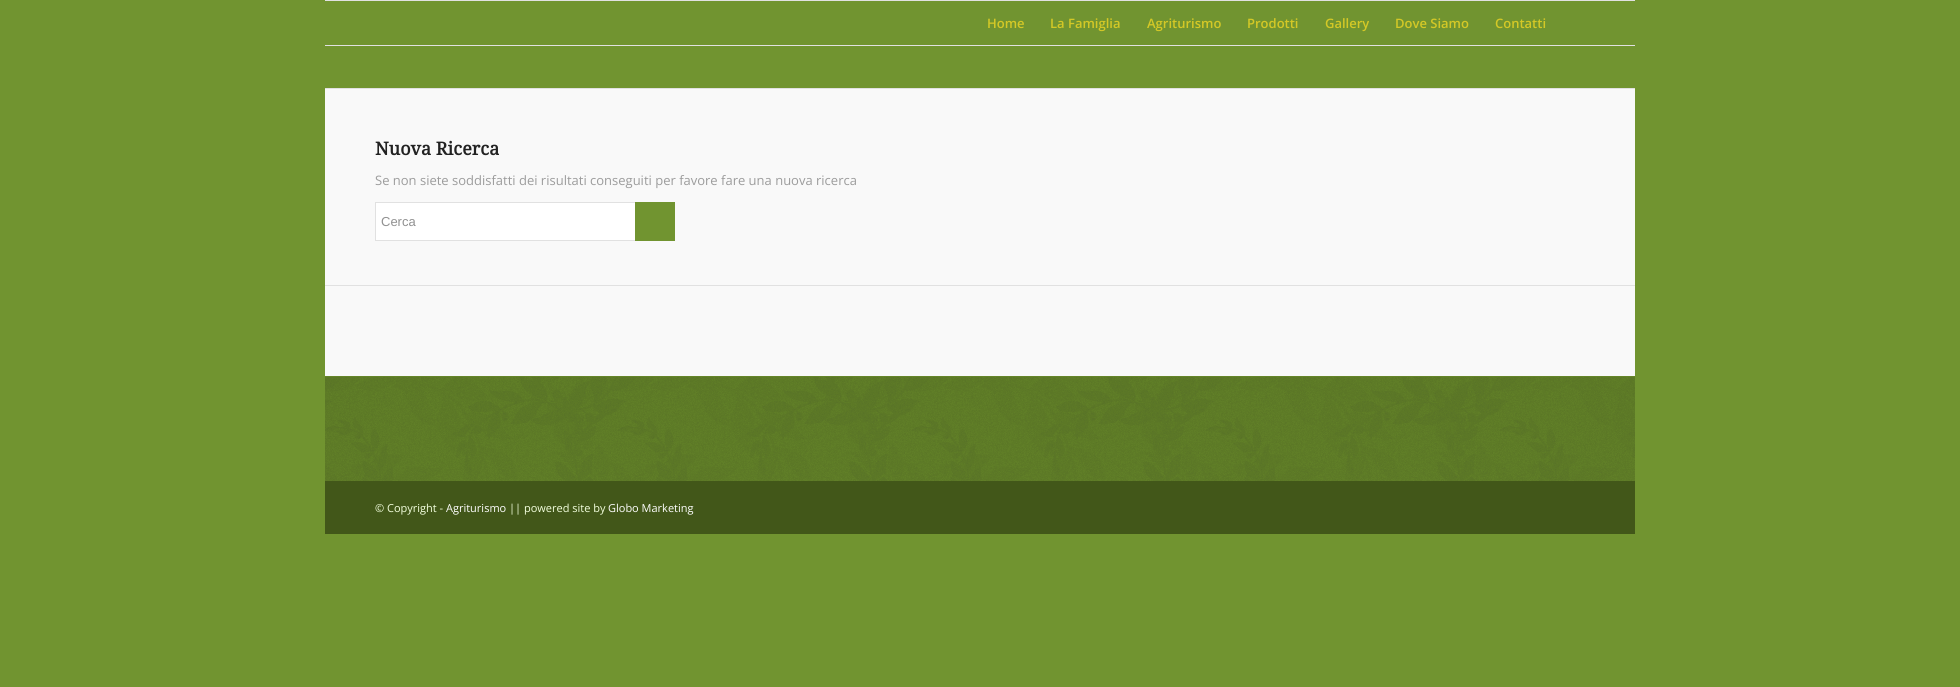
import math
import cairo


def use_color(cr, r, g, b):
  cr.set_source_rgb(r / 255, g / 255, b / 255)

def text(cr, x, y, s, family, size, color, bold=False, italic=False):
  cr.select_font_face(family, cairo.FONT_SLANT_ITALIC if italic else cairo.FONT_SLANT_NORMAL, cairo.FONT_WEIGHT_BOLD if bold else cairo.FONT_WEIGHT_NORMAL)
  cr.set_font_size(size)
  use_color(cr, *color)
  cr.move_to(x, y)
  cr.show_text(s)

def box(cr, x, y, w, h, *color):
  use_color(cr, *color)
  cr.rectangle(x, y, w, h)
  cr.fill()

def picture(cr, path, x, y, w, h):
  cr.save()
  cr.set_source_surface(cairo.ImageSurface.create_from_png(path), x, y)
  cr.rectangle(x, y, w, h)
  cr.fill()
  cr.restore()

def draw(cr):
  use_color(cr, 113, 148, 48)
  cr.paint()
  box(cr, 325, 0, 1310, 1, 225, 225, 225)
  box(cr, 325, 45, 1310, 1, 225, 225, 225)
  box(cr, 325, 89, 1310, 287, 249, 249, 249)
  box(cr, 325, 88, 1310, 1, 225, 225, 225)
  box(cr, 376, 203, 259, 37, 255, 255, 255)
  cr.rectangle(375.5, 202.5, 299, 38)
  use_color(cr, 225, 225, 225)
  cr.set_line_width(1)
  cr.stroke()
  box(cr, 635, 202, 40, 39, 113, 148, 48)
  box(cr, 325, 285, 1310, 1, 225, 225, 225)
  box(cr, 325, 376, 1310, 105, 101, 133, 41)
  picture(cr, "img_01.png", 325, 377, 1310, 104)
  box(cr, 325, 481, 1310, 53, 66, 87, 25)
  text(cr, 987, 28, "Home", "Open Sans SemiBold", 13, (212, 200, 38))
  text(cr, 1050, 28, "La Famiglia", "Open Sans SemiBold", 13, (212, 200, 38))
  text(cr, 1147, 28, "Agriturismo", "Open Sans SemiBold", 13, (212, 200, 38))
  text(cr, 1247, 28, "Prodotti", "Open Sans SemiBold", 13, (212, 200, 38))
  text(cr, 1325, 28, "Gallery", "Open Sans SemiBold", 13, (212, 200, 38))
  text(cr, 1395, 28, "Dove Siamo", "Open Sans SemiBold", 13, (212, 200, 38))
  text(cr, 1495, 28, "Contatti", "Open Sans SemiBold", 13, (212, 200, 38))
  text(cr, 375, 155, "Nuova Ricerca", "Droid Serif", 18, (34, 34, 34), bold=True)
  text(cr, 375, 185, "Se non siete soddisfatti dei risultati conseguiti per favore fare una nuova ricerca", "Open Sans", 13, (156, 156, 156))
  text(cr, 381, 226, "Cerca", "Liberation Sans", 13, (145, 145, 145))
  text(cr, 375, 512, "© Copyright -", "Open Sans", 11, (243, 255, 222))
  text(cr, 446, 512, "Agriturismo", "Open Sans", 11, (255, 255, 255))
  text(cr, 509, 512, "|| powered site by", "Open Sans", 11, (243, 255, 222))
  text(cr, 608, 512, "Globo Marketing", "Open Sans", 11, (255, 255, 255))


surface = cairo.ImageSurface(cairo.FORMAT_RGB24, 1960, 687)
cr = cairo.Context(surface)
options = cairo.FontOptions()
options.set_hint_metrics(cairo.HINT_METRICS_OFF)
options.set_hint_style(cairo.HINT_STYLE_NONE)
cr.set_font_options(options)
cr.set_miter_limit(4)
draw(cr)
surface.write_to_png("out.png")
